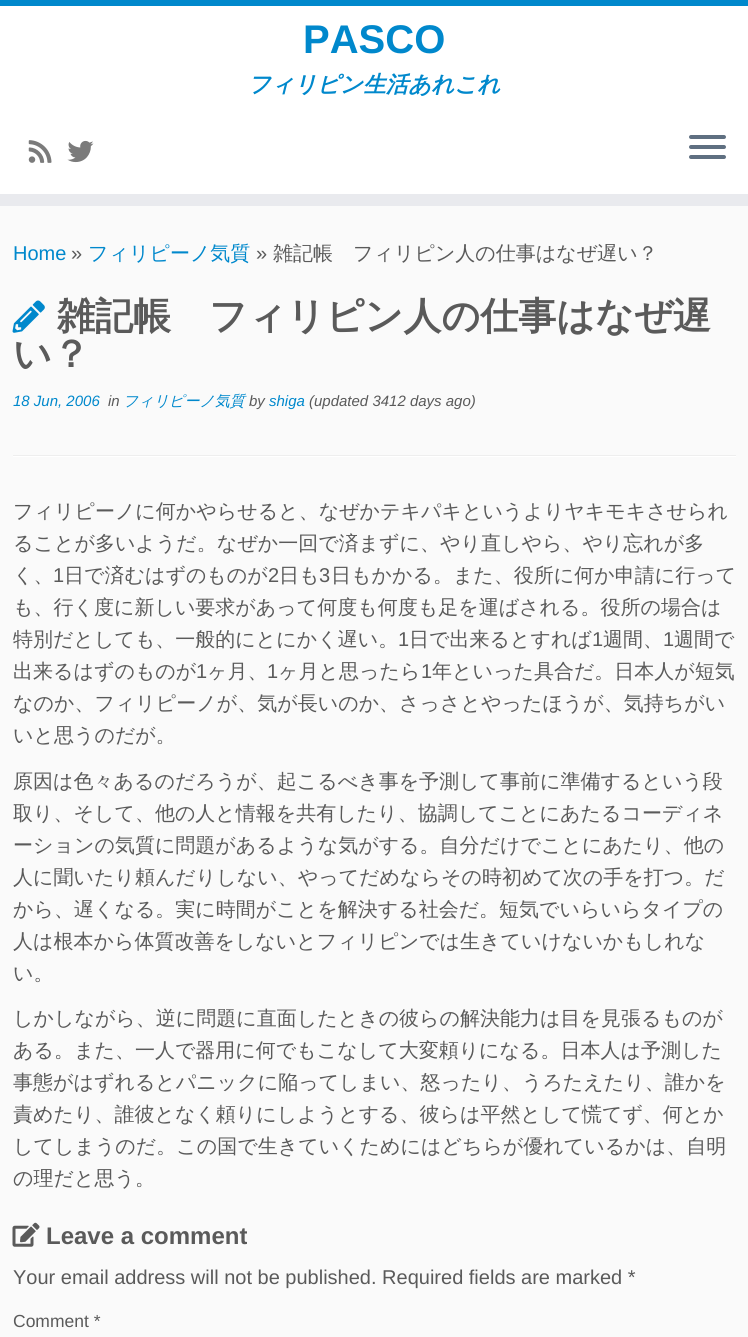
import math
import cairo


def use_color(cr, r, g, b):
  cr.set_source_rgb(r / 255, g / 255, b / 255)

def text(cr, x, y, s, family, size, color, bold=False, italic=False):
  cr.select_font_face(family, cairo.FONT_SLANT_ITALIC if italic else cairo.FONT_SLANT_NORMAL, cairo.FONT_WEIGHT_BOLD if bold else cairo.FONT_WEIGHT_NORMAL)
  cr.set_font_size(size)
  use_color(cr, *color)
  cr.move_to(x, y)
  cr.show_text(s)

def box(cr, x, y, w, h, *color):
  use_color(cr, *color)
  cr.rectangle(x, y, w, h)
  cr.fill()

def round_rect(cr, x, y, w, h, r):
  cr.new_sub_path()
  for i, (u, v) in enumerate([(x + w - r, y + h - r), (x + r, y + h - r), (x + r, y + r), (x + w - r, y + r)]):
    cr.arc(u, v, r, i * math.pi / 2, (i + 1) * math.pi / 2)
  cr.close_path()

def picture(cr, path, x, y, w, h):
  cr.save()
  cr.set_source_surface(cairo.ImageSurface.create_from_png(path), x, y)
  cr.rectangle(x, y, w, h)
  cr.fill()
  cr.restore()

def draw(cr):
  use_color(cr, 250, 250, 250)
  cr.paint()
  box(cr, 0, 6, 748, 188, 255, 255, 255)
  box(cr, 0, 0, 748, 6, 0, 136, 204)
  box(cr, 0, 194, 748, 12, 233, 234, 238)
  picture(cr, "img_01.png", 28, 140, 24, 23)
  picture(cr, "img_02.png", 67, 140, 27, 23)
  use_color(cr, 95, 111, 129)
  round_rect(cr, 689, 135, 37, 4, 2)
  cr.fill()
  round_rect(cr, 689, 145, 37, 4, 2)
  cr.fill()
  round_rect(cr, 689, 155, 37, 4, 2)
  cr.fill()
  picture(cr, "img_03.png", 12, 300, 33, 33)
  box(cr, 13, 455, 723, 1, 238, 238, 238)
  box(cr, 13, 456, 723, 1, 255, 255, 255)
  picture(cr, "img_04.png", 12, 1222, 28, 25)
  text(cr, 303, 53, "PASCO", "Liberation Sans", 40, (0, 136, 204), bold=True)
  text(cr, 248, 92, "フィリピン生活あれこれ", "WenQuanYi Zen Hei", 22.5, (0, 136, 204), bold=True, italic=True)
  text(cr, 13, 260, "Home", "Liberation Sans", 20, (0, 136, 204))
  text(cr, 71, 260, "»", "Liberation Sans", 20, (90, 90, 90))
  text(cr, 88, 260, "フィリピーノ気質", "WenQuanYi Zen Hei Medium", 20, (0, 136, 204))
  text(cr, 256, 260, "»", "Liberation Sans", 20, (90, 90, 90))
  text(cr, 273, 260, "雑記帳　フィリピン人の仕事はなぜ遅い？", "WenQuanYi Zen Hei Medium", 20, (90, 90, 90))
  text(cr, 57, 329, "雑記帳　フィリピン人の仕事はなぜ遅", "WenQuanYi Zen Hei", 38, (90, 90, 90), bold=True)
  text(cr, 13, 367, "い？", "WenQuanYi Zen Hei", 38, (90, 90, 90), bold=True)
  text(cr, 13, 406, "18 Jun, 2006", "Liberation Sans", 15, (0, 136, 204), italic=True)
  text(cr, 108, 406, "in", "Liberation Sans", 15, (90, 90, 90), italic=True)
  text(cr, 123, 406, "フィリピーノ気質", "WenQuanYi Zen Hei Medium", 15, (0, 136, 204), italic=True)
  text(cr, 249, 406, "by", "Liberation Sans", 15, (90, 90, 90), italic=True)
  text(cr, 269, 406, "shiga", "Liberation Sans", 15, (0, 136, 204), italic=True)
  text(cr, 309, 406, "(updated 3412 days ago)", "Liberation Sans", 15, (90, 90, 90), italic=True)
  text(cr, 13, 518, "フィリピーノに何かやらせると、なぜかテキパキというよりヤキモキさせられ", "WenQuanYi Zen Hei Medium", 20, (90, 90, 90))
  text(cr, 13, 550, "ることが多いようだ。なぜか一回で済まずに、やり直しやら、やり忘れが多", "WenQuanYi Zen Hei Medium", 20, (90, 90, 90))
  text(cr, 13, 582, "く、", "WenQuanYi Zen Hei Medium", 20, (90, 90, 90))
  text(cr, 53, 582, "1", "Liberation Sans", 20, (90, 90, 90))
  text(cr, 64, 582, "日で済むはずのものが", "WenQuanYi Zen Hei Medium", 20, (90, 90, 90))
  text(cr, 268, 582, "2", "Liberation Sans", 20, (90, 90, 90))
  text(cr, 279, 582, "日も", "WenQuanYi Zen Hei Medium", 20, (90, 90, 90))
  text(cr, 319, 582, "3", "Liberation Sans", 20, (90, 90, 90))
  text(cr, 331, 582, "日もかかる。また、役所に何か申請に行って", "WenQuanYi Zen Hei Medium", 20, (90, 90, 90))
  text(cr, 13, 614, "も、行く度に新しい要求があって何度も何度も足を運ばされる。役所の場合は", "WenQuanYi Zen Hei Medium", 20, (90, 90, 90))
  text(cr, 13, 646, "特別だとしても、一般的にとにかく遅い。", "WenQuanYi Zen Hei Medium", 20, (90, 90, 90))
  text(cr, 398, 646, "1", "Liberation Sans", 20, (90, 90, 90))
  text(cr, 409, 646, "日で出来るとすれば", "WenQuanYi Zen Hei Medium", 20, (90, 90, 90))
  text(cr, 592, 646, "1", "Liberation Sans", 20, (90, 90, 90))
  text(cr, 603, 646, "週間、", "WenQuanYi Zen Hei Medium", 20, (90, 90, 90))
  text(cr, 663, 646, "1", "Liberation Sans", 20, (90, 90, 90))
  text(cr, 674, 646, "週間で", "WenQuanYi Zen Hei Medium", 20, (90, 90, 90))
  text(cr, 13, 678, "出来るはずのものが", "WenQuanYi Zen Hei Medium", 20, (90, 90, 90))
  text(cr, 196, 678, "1", "Liberation Sans", 20, (90, 90, 90))
  text(cr, 207, 678, "ヶ月、", "WenQuanYi Zen Hei Medium", 20, (90, 90, 90))
  text(cr, 267, 678, "1", "Liberation Sans", 20, (90, 90, 90))
  text(cr, 278, 678, "ヶ月と思ったら", "WenQuanYi Zen Hei Medium", 20, (90, 90, 90))
  text(cr, 421, 678, "1", "Liberation Sans", 20, (90, 90, 90))
  text(cr, 432, 678, "年といった具合だ。日本人が短気", "WenQuanYi Zen Hei Medium", 20, (90, 90, 90))
  text(cr, 13, 710, "なのか、フィリピーノが、気が長いのか、さっさとやったほうが、気持ちがい", "WenQuanYi Zen Hei Medium", 20, (90, 90, 90))
  text(cr, 13, 742, "いと思うのだが。", "WenQuanYi Zen Hei Medium", 20, (90, 90, 90))
  text(cr, 13, 788, "原因は色々あるのだろうが、起こるべき事を予測して事前に準備するという段", "WenQuanYi Zen Hei Medium", 20, (90, 90, 90))
  text(cr, 13, 820, "取り、そして、他の人と情報を共有したり、協調してことにあたるコーディネ", "WenQuanYi Zen Hei Medium", 20, (90, 90, 90))
  text(cr, 13, 852, "ーションの気質に問題があるような気がする。自分だけでことにあたり、他の", "WenQuanYi Zen Hei Medium", 20, (90, 90, 90))
  text(cr, 13, 884, "人に聞いたり頼んだりしない、やってだめならその時初めて次の手を打つ。だ", "WenQuanYi Zen Hei Medium", 20, (90, 90, 90))
  text(cr, 13, 916, "から、遅くなる。実に時間がことを解決する社会だ。短気でいらいらタイプの", "WenQuanYi Zen Hei Medium", 20, (90, 90, 90))
  text(cr, 13, 948, "人は根本から体質改善をしないとフィリピンでは生きていけないかもしれな", "WenQuanYi Zen Hei Medium", 20, (90, 90, 90))
  text(cr, 13, 980, "い。", "WenQuanYi Zen Hei Medium", 20, (90, 90, 90))
  text(cr, 13, 1025, "しかしながら、逆に問題に直面したときの彼らの解決能力は目を見張るものが", "WenQuanYi Zen Hei Medium", 20, (90, 90, 90))
  text(cr, 13, 1057, "ある。また、一人で器用に何でもこなして大変頼りになる。日本人は予測した", "WenQuanYi Zen Hei Medium", 20, (90, 90, 90))
  text(cr, 13, 1089, "事態がはずれるとパニックに陥ってしまい、怒ったり、うろたえたり、誰かを", "WenQuanYi Zen Hei Medium", 20, (90, 90, 90))
  text(cr, 13, 1121, "責めたり、誰彼となく頼りにしようとする、彼らは平然として慌てず、何とか", "WenQuanYi Zen Hei Medium", 20, (90, 90, 90))
  text(cr, 13, 1153, "してしまうのだ。この国で生きていくためにはどちらが優れているかは、自明", "WenQuanYi Zen Hei Medium", 20, (90, 90, 90))
  text(cr, 13, 1185, "の理だと思う。", "WenQuanYi Zen Hei Medium", 20, (90, 90, 90))
  text(cr, 46, 1244, "Leave a comment", "Liberation Sans", 24, (90, 90, 90), bold=True)
  text(cr, 13, 1284, "Your email address will not be published. Required fields are marked *", "Liberation Sans", 20, (90, 90, 90))
  text(cr, 13, 1327, "Comment *", "Liberation Sans", 17.5, (90, 90, 90))


surface = cairo.ImageSurface(cairo.FORMAT_RGB24, 748, 1337)
cr = cairo.Context(surface)
options = cairo.FontOptions()
options.set_hint_metrics(cairo.HINT_METRICS_OFF)
options.set_hint_style(cairo.HINT_STYLE_NONE)
cr.set_font_options(options)
cr.set_miter_limit(4)
draw(cr)
surface.write_to_png("out.png")
